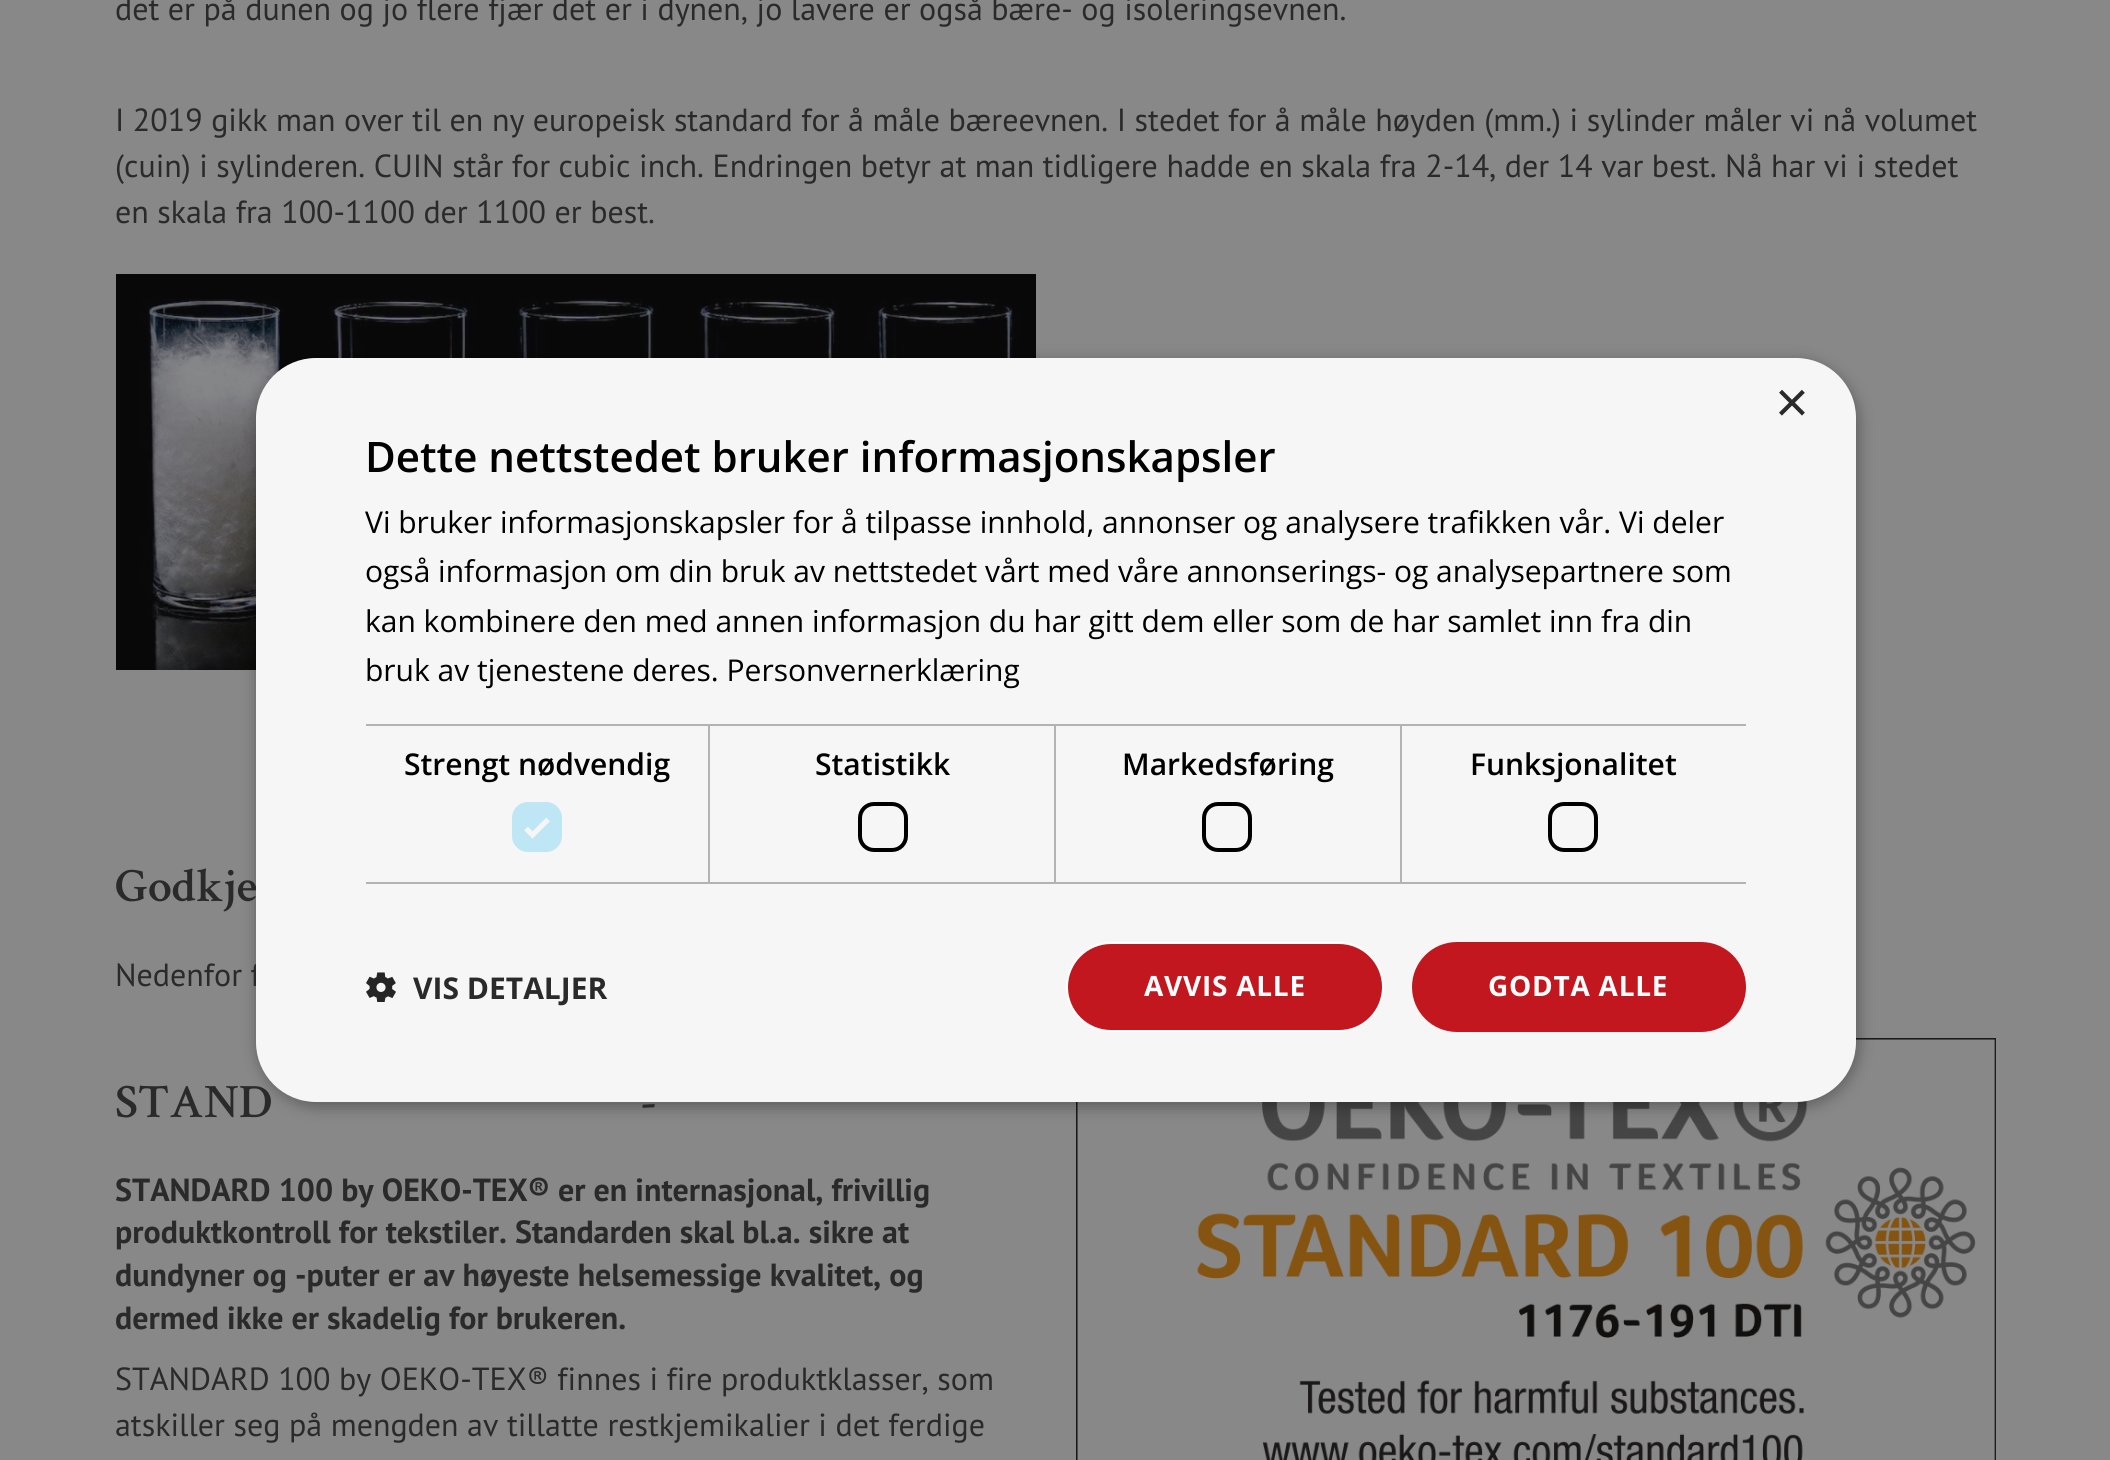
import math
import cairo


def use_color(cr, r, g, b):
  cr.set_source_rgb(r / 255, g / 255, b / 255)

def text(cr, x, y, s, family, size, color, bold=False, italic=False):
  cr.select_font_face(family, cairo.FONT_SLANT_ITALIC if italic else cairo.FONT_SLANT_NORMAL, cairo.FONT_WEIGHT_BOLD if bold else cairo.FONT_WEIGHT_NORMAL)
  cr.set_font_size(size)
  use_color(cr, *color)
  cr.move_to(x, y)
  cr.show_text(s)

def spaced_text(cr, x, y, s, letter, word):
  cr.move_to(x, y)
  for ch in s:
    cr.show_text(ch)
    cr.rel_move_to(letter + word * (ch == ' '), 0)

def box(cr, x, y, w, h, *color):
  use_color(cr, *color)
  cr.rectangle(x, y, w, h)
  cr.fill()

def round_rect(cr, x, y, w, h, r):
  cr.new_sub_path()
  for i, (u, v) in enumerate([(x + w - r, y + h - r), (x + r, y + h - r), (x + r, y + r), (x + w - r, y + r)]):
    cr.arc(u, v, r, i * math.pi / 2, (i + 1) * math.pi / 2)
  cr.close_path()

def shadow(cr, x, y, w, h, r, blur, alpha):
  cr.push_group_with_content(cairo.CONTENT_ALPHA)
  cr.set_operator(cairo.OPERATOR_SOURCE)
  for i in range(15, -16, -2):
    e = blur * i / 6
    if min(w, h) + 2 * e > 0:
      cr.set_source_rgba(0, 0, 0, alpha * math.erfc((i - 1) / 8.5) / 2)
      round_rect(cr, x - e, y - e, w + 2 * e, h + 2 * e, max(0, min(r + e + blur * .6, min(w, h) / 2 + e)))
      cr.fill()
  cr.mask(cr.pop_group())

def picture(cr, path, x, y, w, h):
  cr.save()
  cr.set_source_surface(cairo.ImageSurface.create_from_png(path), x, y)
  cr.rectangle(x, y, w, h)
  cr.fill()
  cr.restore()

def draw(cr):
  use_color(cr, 136, 136, 136)
  cr.paint()
  picture(cr, "img_01.png", 116, 274, 920, 396)
  picture(cr, "img_02.png", 1076, 1038, 920, 422)
  use_color(cr, 0, 0, 0)
  shadow(cr, 258, 362, 1600, 744, 60, 8, 0.35)
  text(cr, 115, 20, "det er på dunen og jo flere fjær det er i dynen, jo lavere er også bære- og isoleringsevnen.", "PT Sans", 32, (42, 42, 42))
  text(cr, 115, 131, "I 2019 gikk man over til en ny europeisk standard for å måle bæreevnen. I stedet for å måle høyden (mm.) i sylinder måler vi nå volumet", "PT Sans", 32, (42, 42, 42))
  text(cr, 115, 177, "(cuin) i sylinderen. CUIN står for cubic inch. Endringen betyr at man tidligere hadde en skala fra 2-14, der 14 var best. Nå har vi i stedet", "PT Sans", 32, (42, 42, 42))
  text(cr, 115, 223, "en skala fra 100-1100 der 1100 er best.", "PT Sans", 32, (42, 42, 42))
  text(cr, 115, 901, "Godkje", "Crimson Text SemiBold", 48, (42, 42, 42))
  text(cr, 115, 986, "Nedenfor f", "PT Sans", 32, (42, 42, 42))
  text(cr, 115, 1117, "STAND", "Crimson Text SemiBold", 48, (42, 42, 42))
  text(cr, 641, 1117, "-", "Crimson Text SemiBold", 48, (42, 42, 42))
  text(cr, 115, 1201, "STANDARD 100 by OEKO-TEX® er en internasjonal, frivillig", "PT Sans", 32, (42, 42, 42), bold=True)
  text(cr, 115, 1243, "produktkontroll for tekstiler. Standarden skal bl.a. sikre at", "PT Sans", 32, (42, 42, 42), bold=True)
  text(cr, 115, 1286, "dundyner og -puter er av høyeste helsemessige kvalitet, og", "PT Sans", 32, (42, 42, 42), bold=True)
  text(cr, 115, 1329, "dermed ikke er skadelig for brukeren.", "PT Sans", 32, (42, 42, 42), bold=True)
  text(cr, 115, 1390, "STANDARD 100 by OEKO-TEX® finnes i fire produktklasser, som", "PT Sans", 32, (42, 42, 42))
  text(cr, 115, 1436, "atskiller seg på mengden av tillatte restkjemikalier i det ferdige", "PT Sans", 32, (42, 42, 42))
  use_color(cr, 246, 246, 246)
  round_rect(cr, 256, 358, 1600, 744, 60)
  cr.fill()
  text(cr, 1775, 422, "×", "Liberation Sans", 58, (42, 42, 42))
  text(cr, 365, 472, "Dette nettstedet bruker informasjonskapsler", "Open Sans SemiBold", 42, (0, 0, 0))
  text(cr, 365, 533, "Vi bruker informasjonskapsler for å tilpasse innhold, annonser og analysere trafikken vår. Vi deler", "Open Sans", 30, (0, 0, 0))
  text(cr, 365, 582, "også informasjon om din bruk av nettstedet vårt med våre annonserings- og analysepartnere som", "Open Sans", 30, (0, 0, 0))
  text(cr, 365, 632, "kan kombinere den med annen informasjon du har gitt dem eller som de har samlet inn fra din", "Open Sans", 30, (0, 0, 0))
  text(cr, 365, 681, "bruk av tjenestene deres. Personvernerklæring", "Open Sans", 30, (0, 0, 0))
  box(cr, 366, 724, 1380, 2, 179, 179, 179)
  box(cr, 708, 724, 2, 160, 179, 179, 179)
  box(cr, 366, 882, 344, 2, 179, 179, 179)
  text(cr, 404, 775, "Strengt nødvendig", "Open Sans SemiBold", 30, (0, 0, 0))
  use_color(cr, 191, 230, 244)
  round_rect(cr, 512, 802, 50, 50, 16)
  cr.fill()
  cr.new_path()
  cr.move_to(526, 828.5)
  cr.line_to(532.5, 835)
  cr.line_to(548, 819.5)
  use_color(cr, 246, 246, 246)
  cr.set_line_width(5.2)
  cr.stroke()
  box(cr, 1054, 724, 2, 160, 179, 179, 179)
  box(cr, 710, 882, 346, 2, 179, 179, 179)
  text(cr, 815, 775, "Statistikk", "Open Sans SemiBold", 30, (0, 0, 0))
  round_rect(cr, 860, 804, 46, 46, 14)
  cr.set_line_width(4)
  cr.stroke()
  box(cr, 1400, 724, 2, 160, 179, 179, 179)
  box(cr, 1056, 882, 690, 2, 179, 179, 179)
  text(cr, 1122, 775, "Markedsføring", "Open Sans SemiBold", 30, (0, 0, 0))
  round_rect(cr, 1204, 804, 46, 46, 14)
  cr.stroke()
  text(cr, 1470, 775, "Funksjonalitet", "Open Sans SemiBold", 30, (0, 0, 0))
  round_rect(cr, 1550, 804, 46, 46, 14)
  cr.stroke()
  picture(cr, "img_03.png", 366, 972, 30, 30)
  text(cr, 413, 999, "VIS DETALJER", "Open Sans", 30, (42, 42, 42), bold=True)
  use_color(cr, 194, 23, 30)
  round_rect(cr, 1067, 943, 316, 88, 44)
  cr.fill_preserve()
  use_color(cr, 255, 255, 255)
  cr.set_line_width(2)
  cr.stroke()
  cr.set_font_size(28)
  spaced_text(cr, 1144, 996, "AVVIS ALLE", 0.75, 0)
  use_color(cr, 194, 23, 30)
  round_rect(cr, 1412, 942, 334, 90, 45)
  cr.fill()
  use_color(cr, 255, 255, 255)
  spaced_text(cr, 1488, 996, "GODTA ALLE", 0.75, 0)


surface = cairo.ImageSurface(cairo.FORMAT_RGB24, 2110, 1460)
cr = cairo.Context(surface)
options = cairo.FontOptions()
options.set_hint_metrics(cairo.HINT_METRICS_OFF)
options.set_hint_style(cairo.HINT_STYLE_NONE)
cr.set_font_options(options)
cr.set_miter_limit(4)
draw(cr)
surface.write_to_png("out.png")
